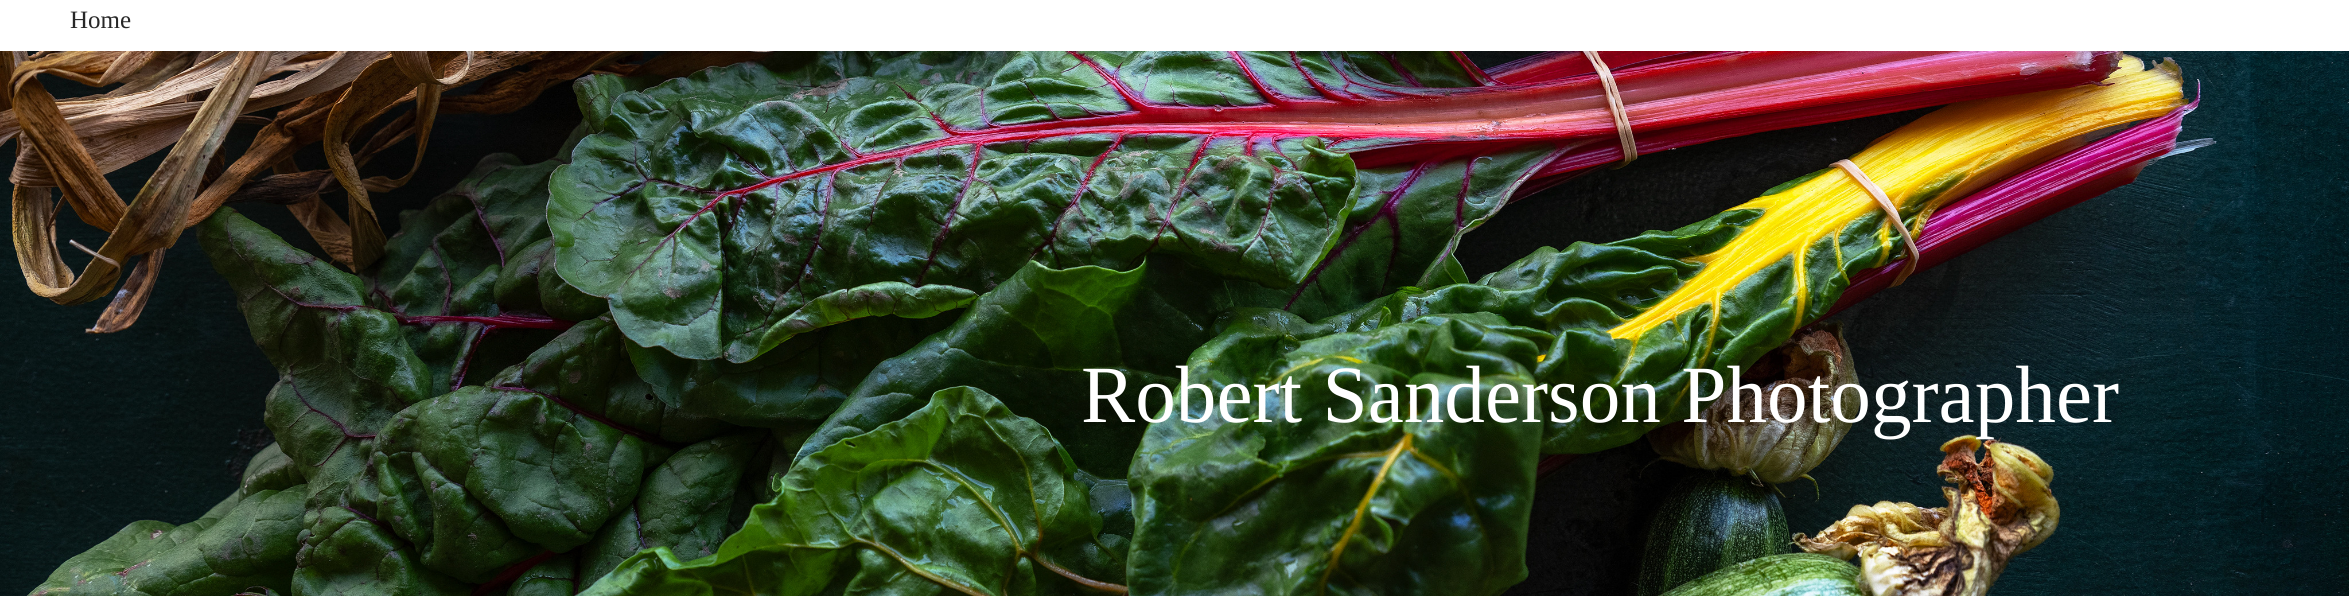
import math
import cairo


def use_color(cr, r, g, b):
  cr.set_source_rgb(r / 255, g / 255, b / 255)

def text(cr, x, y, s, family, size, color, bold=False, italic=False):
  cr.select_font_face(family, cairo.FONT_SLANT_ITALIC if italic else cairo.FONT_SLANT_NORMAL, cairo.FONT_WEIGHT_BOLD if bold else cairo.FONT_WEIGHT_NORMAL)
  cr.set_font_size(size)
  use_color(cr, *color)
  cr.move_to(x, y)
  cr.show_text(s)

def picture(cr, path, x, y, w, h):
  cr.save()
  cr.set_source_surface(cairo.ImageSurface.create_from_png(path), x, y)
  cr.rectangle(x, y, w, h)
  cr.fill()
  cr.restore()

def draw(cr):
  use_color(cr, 255, 255, 255)
  cr.paint()
  picture(cr, "img_01.png", 0, 51, 2349, 545)
  cr.set_source_rgba(0, 0, 0, 0.1)
  cr.arc(2262.5, 508.5, 37.5, 0, 2 * math.pi)
  cr.fill()
  picture(cr, "img_02.png", 2252, 495, 21, 28)
  text(cr, 70, 28, "Home", "Liberation Serif", 25, (40, 40, 40))
  text(cr, 1081, 422, "Robert Sanderson Photographer", "Liberation Serif", 81.25, (255, 255, 255))


surface = cairo.ImageSurface(cairo.FORMAT_RGB24, 2349, 596)
cr = cairo.Context(surface)
options = cairo.FontOptions()
options.set_hint_metrics(cairo.HINT_METRICS_OFF)
options.set_hint_style(cairo.HINT_STYLE_NONE)
cr.set_font_options(options)
cr.set_miter_limit(4)
draw(cr)
surface.write_to_png("out.png")
